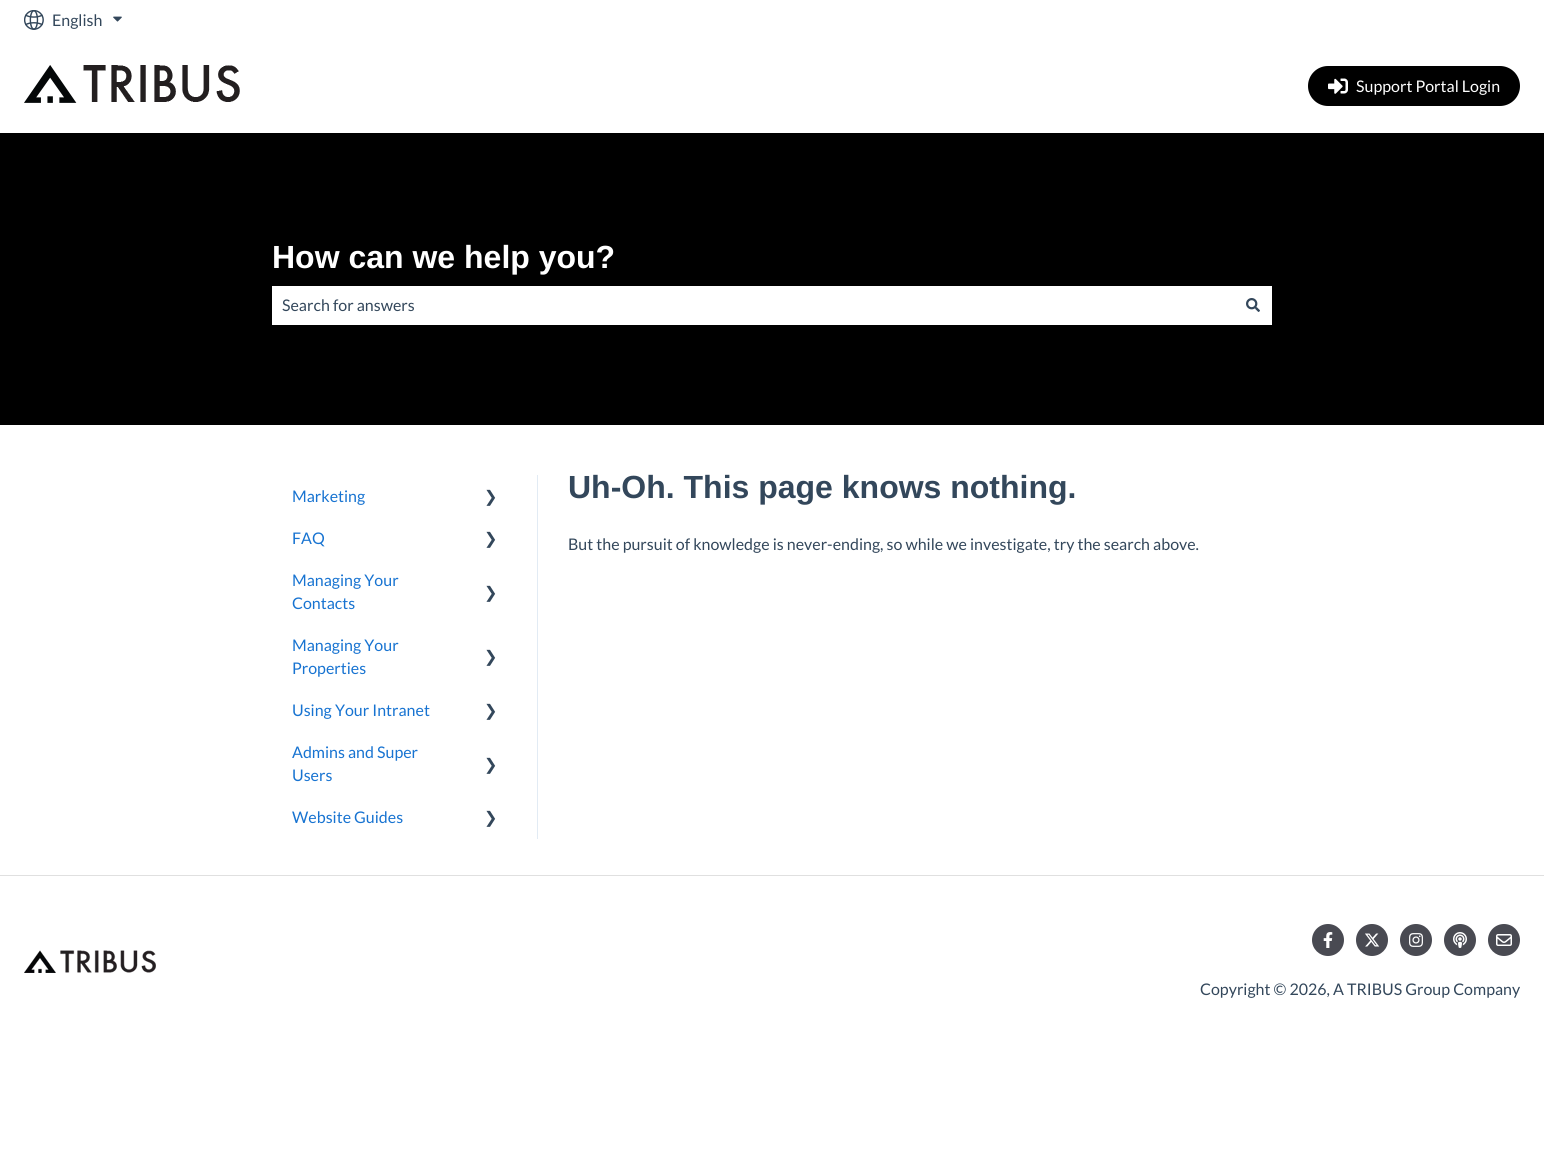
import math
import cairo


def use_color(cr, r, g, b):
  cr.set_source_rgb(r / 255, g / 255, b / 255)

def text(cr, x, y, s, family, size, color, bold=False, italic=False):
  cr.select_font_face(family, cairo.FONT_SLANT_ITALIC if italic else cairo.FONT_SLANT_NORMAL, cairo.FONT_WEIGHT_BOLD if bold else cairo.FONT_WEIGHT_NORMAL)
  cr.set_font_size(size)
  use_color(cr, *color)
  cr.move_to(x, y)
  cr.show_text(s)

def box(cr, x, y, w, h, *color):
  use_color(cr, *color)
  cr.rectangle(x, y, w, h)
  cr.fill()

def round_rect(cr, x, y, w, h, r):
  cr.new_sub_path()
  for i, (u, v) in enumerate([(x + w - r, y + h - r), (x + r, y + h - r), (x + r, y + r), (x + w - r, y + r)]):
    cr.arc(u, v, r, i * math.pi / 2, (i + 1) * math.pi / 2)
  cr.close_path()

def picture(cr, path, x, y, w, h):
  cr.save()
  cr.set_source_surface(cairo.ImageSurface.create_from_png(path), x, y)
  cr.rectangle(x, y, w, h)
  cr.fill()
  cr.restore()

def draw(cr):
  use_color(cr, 255, 255, 255)
  cr.paint()
  picture(cr, "img_01.png", 24, 10, 20, 20)
  picture(cr, "img_02.png", 113, 16, 9, 6)
  picture(cr, "img_03.png", 24, 65, 216, 38)
  use_color(cr, 0, 0, 0)
  round_rect(cr, 1308, 66, 212, 40, 20)
  cr.fill()
  picture(cr, "img_04.png", 1328, 78, 20, 16)
  box(cr, 0, 133, 1544, 292, 0, 0, 0)
  box(cr, 272, 286, 1000, 39, 255, 255, 255)
  picture(cr, "img_05.png", 1246, 298, 14, 14)
  box(cr, 537, 475, 1, 364, 226, 235, 244)
  box(cr, 0, 875, 1544, 1, 224, 224, 224)
  picture(cr, "img_06.png", 24, 950, 132, 23)
  use_color(cr, 73, 74, 82)
  cr.arc(1328, 940, 16, 0, 2 * math.pi)
  cr.fill()
  picture(cr, "img_07.png", 1323, 932, 10, 16)
  cr.arc(1372, 940, 16, 0, 2 * math.pi)
  cr.fill()
  picture(cr, "img_08.png", 1365, 933, 15, 14)
  cr.arc(1416, 940, 16, 0, 2 * math.pi)
  cr.fill()
  picture(cr, "img_09.png", 1409, 933, 14, 14)
  cr.arc(1460, 940, 16, 0, 2 * math.pi)
  cr.fill()
  picture(cr, "img_10.png", 1453, 932, 14, 16)
  cr.arc(1504, 940, 16, 0, 2 * math.pi)
  cr.fill()
  picture(cr, "img_11.png", 1496, 934, 16, 12)
  text(cr, 52, 26, "English", "Lato", 16, (51, 71, 91))
  text(cr, 1356, 92, "Support Portal Login", "Lato", 16, (255, 255, 255))
  text(cr, 272, 268, "How can we help you?", "Liberation Sans", 32, (255, 255, 255), bold=True)
  text(cr, 282, 311, "Search for answers", "Lato", 16, (51, 71, 91))
  text(cr, 292, 502, "Marketing", "Lato", 16, (23, 115, 209))
  text(cr, 484, 502, "❯", "DejaVu Sans", 16, (51, 71, 91))
  text(cr, 292, 544, "FAQ", "Lato", 16, (23, 115, 209))
  text(cr, 484, 544, "❯", "DejaVu Sans", 16, (51, 71, 91))
  text(cr, 292, 586, "Managing Your", "Lato", 16, (23, 115, 209))
  text(cr, 292, 609, "Contacts", "Lato", 16, (23, 115, 209))
  text(cr, 484, 598, "❯", "DejaVu Sans", 16, (51, 71, 91))
  text(cr, 292, 651, "Managing Your", "Lato", 16, (23, 115, 209))
  text(cr, 292, 674, "Properties", "Lato", 16, (23, 115, 209))
  text(cr, 484, 662, "❯", "DejaVu Sans", 16, (51, 71, 91))
  text(cr, 292, 716, "Using Your Intranet", "Lato", 16, (23, 115, 209))
  text(cr, 484, 716, "❯", "DejaVu Sans", 16, (51, 71, 91))
  text(cr, 292, 758, "Admins and Super", "Lato", 16, (23, 115, 209))
  text(cr, 292, 781, "Users", "Lato", 16, (23, 115, 209))
  text(cr, 484, 770, "❯", "DejaVu Sans", 16, (51, 71, 91))
  text(cr, 292, 823, "Website Guides", "Lato", 16, (23, 115, 209))
  text(cr, 484, 823, "❯", "DejaVu Sans", 16, (51, 71, 91))
  text(cr, 568, 498, "Uh-Oh. This page knows nothing.", "Liberation Sans", 32, (51, 71, 91), bold=True)
  text(cr, 568, 550, "But the pursuit of knowledge is never-ending, so while we investigate, try the search above.", "Lato", 16, (51, 71, 91))
  text(cr, 1200, 995, "Copyright © 2026, A TRIBUS Group Company", "Lato", 16, (51, 71, 91))


surface = cairo.ImageSurface(cairo.FORMAT_RGB24, 1544, 1167)
cr = cairo.Context(surface)
options = cairo.FontOptions()
options.set_hint_metrics(cairo.HINT_METRICS_OFF)
options.set_hint_style(cairo.HINT_STYLE_NONE)
cr.set_font_options(options)
cr.set_miter_limit(4)
draw(cr)
surface.write_to_png("out.png")
